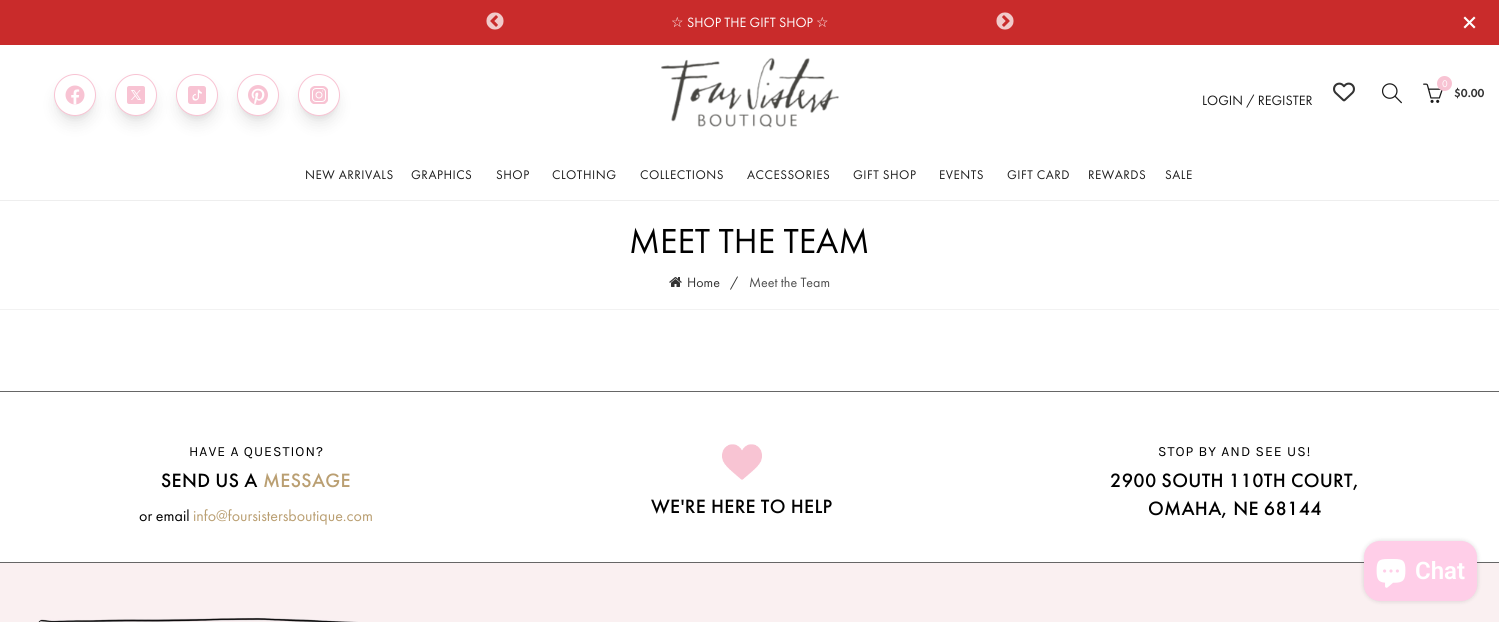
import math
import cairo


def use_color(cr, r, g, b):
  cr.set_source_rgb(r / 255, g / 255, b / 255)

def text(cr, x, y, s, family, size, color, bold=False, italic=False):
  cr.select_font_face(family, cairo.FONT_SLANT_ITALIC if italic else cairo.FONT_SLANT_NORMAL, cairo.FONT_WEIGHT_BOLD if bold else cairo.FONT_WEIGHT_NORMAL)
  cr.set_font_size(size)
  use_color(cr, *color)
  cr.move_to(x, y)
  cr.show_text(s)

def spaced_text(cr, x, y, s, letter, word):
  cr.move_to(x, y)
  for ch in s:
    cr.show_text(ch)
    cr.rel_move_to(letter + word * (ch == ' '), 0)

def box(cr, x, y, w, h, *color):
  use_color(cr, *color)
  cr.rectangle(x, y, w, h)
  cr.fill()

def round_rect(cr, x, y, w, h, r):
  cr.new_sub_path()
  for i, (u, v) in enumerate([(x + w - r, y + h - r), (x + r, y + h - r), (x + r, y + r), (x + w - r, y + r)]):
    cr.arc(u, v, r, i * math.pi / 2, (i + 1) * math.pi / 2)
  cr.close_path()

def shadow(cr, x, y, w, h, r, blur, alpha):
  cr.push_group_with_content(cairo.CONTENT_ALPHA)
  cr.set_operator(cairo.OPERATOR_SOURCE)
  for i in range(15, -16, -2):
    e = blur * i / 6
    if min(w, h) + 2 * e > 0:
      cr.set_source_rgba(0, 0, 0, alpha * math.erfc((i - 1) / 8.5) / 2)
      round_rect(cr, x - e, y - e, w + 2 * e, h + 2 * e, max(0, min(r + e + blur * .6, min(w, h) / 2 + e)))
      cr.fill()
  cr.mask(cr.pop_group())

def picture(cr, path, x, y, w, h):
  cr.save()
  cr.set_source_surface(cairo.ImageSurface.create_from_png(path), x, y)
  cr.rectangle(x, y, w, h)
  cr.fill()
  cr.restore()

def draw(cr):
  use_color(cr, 255, 255, 255)
  cr.paint()
  box(cr, 0, 0, 1499, 45, 201, 43, 43)
  picture(cr, "img_01.png", 486, 12, 18, 18)
  picture(cr, "img_02.png", 996, 12, 18, 18)
  use_color(cr, 255, 255, 255)
  cr.new_path()
  cr.move_to(1465, 16.5)
  cr.line_to(1475.5, 27)
  cr.line_to(1474, 28.5)
  cr.line_to(1463.5, 18)
  cr.close_path()
  cr.fill()
  cr.new_path()
  cr.move_to(1463.5, 27)
  cr.line_to(1474, 16.5)
  cr.line_to(1475.5, 18)
  cr.line_to(1465, 28.5)
  cr.close_path()
  cr.fill()
  use_color(cr, 0, 0, 0)
  shadow(cr, 58, 82, 34, 34, 17, 3, 0.1)
  shadow(cr, 57, 87, 36, 36, 18, 7.5, 0.1)
  use_color(cr, 255, 255, 255)
  cr.arc(75, 95, 20.5, 0, 2 * math.pi)
  cr.fill_preserve()
  use_color(cr, 248, 195, 211)
  cr.set_line_width(1)
  cr.stroke()
  picture(cr, "img_03.png", 65, 85, 20, 20)
  use_color(cr, 0, 0, 0)
  shadow(cr, 119, 82, 34, 34, 17, 3, 0.1)
  shadow(cr, 118, 87, 36, 36, 18, 7.5, 0.1)
  use_color(cr, 255, 255, 255)
  cr.arc(136, 95, 20.5, 0, 2 * math.pi)
  cr.fill_preserve()
  use_color(cr, 248, 195, 211)
  cr.stroke()
  picture(cr, "img_04.png", 127, 86, 18, 18)
  use_color(cr, 0, 0, 0)
  shadow(cr, 180, 82, 34, 34, 17, 3, 0.1)
  shadow(cr, 179, 87, 36, 36, 18, 7.5, 0.1)
  use_color(cr, 255, 255, 255)
  cr.arc(197, 95, 20.5, 0, 2 * math.pi)
  cr.fill_preserve()
  use_color(cr, 248, 195, 211)
  cr.stroke()
  picture(cr, "img_05.png", 188, 86, 18, 18)
  use_color(cr, 0, 0, 0)
  shadow(cr, 241, 82, 34, 34, 17, 3, 0.1)
  shadow(cr, 240, 87, 36, 36, 18, 7.5, 0.1)
  use_color(cr, 255, 255, 255)
  cr.arc(258, 95, 20.5, 0, 2 * math.pi)
  cr.fill_preserve()
  use_color(cr, 248, 195, 211)
  cr.stroke()
  picture(cr, "img_06.png", 248, 85, 20, 20)
  use_color(cr, 0, 0, 0)
  shadow(cr, 302, 82, 34, 34, 17, 3, 0.1)
  shadow(cr, 301, 87, 36, 36, 18, 7.5, 0.1)
  use_color(cr, 255, 255, 255)
  cr.arc(319, 95, 20.5, 0, 2 * math.pi)
  cr.fill_preserve()
  use_color(cr, 248, 195, 211)
  cr.stroke()
  picture(cr, "img_07.png", 310, 86, 18, 18)
  picture(cr, "img_08.png", 661, 57, 178, 71)
  picture(cr, "img_09.png", 1333, 82, 22, 20)
  picture(cr, "img_10.png", 1382, 83, 20, 21)
  picture(cr, "img_11.png", 1423, 83, 20, 20)
  cr.arc(1444.5, 83.5, 7.5, 0, 2 * math.pi)
  cr.fill()
  box(cr, 0, 200, 1499, 1, 238, 238, 238)
  box(cr, 0, 309, 1499, 1, 242, 242, 242)
  picture(cr, "img_12.png", 669, 277, 13, 10)
  box(cr, 0, 391, 1499, 1, 102, 102, 102)
  picture(cr, "img_13.png", 722, 444, 40, 36)
  box(cr, 0, 562, 1499, 1, 102, 102, 102)
  box(cr, 0, 563, 1499, 59, 250, 240, 241)
  picture(cr, "img_14.png", 38, 617, 320, 5)
  use_color(cr, 0, 0, 0)
  shadow(cr, 1364, 541, 113, 60, 16, 2.5, 0.15)
  use_color(cr, 255, 206, 232)
  round_rect(cr, 1364, 541, 113, 60, 16)
  cr.fill()
  picture(cr, "img_15.png", 1376, 559, 30, 29)
  text(cr, 671, 27, "☆", "DejaVu Sans", 14, (255, 255, 255))
  text(cr, 687, 27, "SHOP THE GIFT SHOP", "Futura PT", 14, (255, 255, 255))
  text(cr, 816, 27, "☆", "DejaVu Sans", 14, (255, 255, 255))
  text(cr, 1202, 105, "LOGIN / REGISTER", "Futura PT", 14, (26, 26, 26))
  text(cr, 1442, 87, "0", "Futura PT", 10, (255, 255, 255))
  text(cr, 1454, 97, "$0.00", "Futura PT Medium", 12, (51, 51, 51))
  cr.select_font_face("Futura PT")
  cr.set_font_size(13)
  use_color(cr, 26, 26, 26)
  spaced_text(cr, 305, 179, "NEW ARRIVALS", 0.5, 0)
  spaced_text(cr, 411, 179, "GRAPHICS", 0.5, 0)
  spaced_text(cr, 496, 179, "SHOP", 0.5, 0)
  spaced_text(cr, 552, 179, "CLOTHING", 0.5, 0)
  spaced_text(cr, 640, 179, "COLLECTIONS", 0.5, 0)
  spaced_text(cr, 747, 179, "ACCESSORIES", 0.5, 0)
  spaced_text(cr, 853, 179, "GIFT SHOP", 0.5, 0)
  spaced_text(cr, 939, 179, "EVENTS", 0.5, 0)
  spaced_text(cr, 1007, 179, "GIFT CARD", 0.5, 0)
  spaced_text(cr, 1088, 179, "REWARDS", 0.5, 0)
  spaced_text(cr, 1165, 179, "SALE", 0.5, 0)
  text(cr, 629, 253, "MEET THE TEAM", "Futura PT", 36, (0, 0, 0))
  text(cr, 687, 287, "Home", "Futura PT", 14, (51, 51, 51))
  text(cr, 730, 287, "/", "Futura PT", 14, (51, 51, 51))
  text(cr, 749, 287, "Meet the Team", "Futura PT", 14, (77, 77, 77))
  cr.select_font_face("Karla")
  use_color(cr, 0, 0, 0)
  spaced_text(cr, 189, 456, "HAVE A QUESTION?", 1, 0)
  cr.select_font_face("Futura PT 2 Medium")
  cr.set_font_size(20)
  spaced_text(cr, 161, 487, "SEND US A", 0.3, 0)
  use_color(cr, 186, 159, 114)
  spaced_text(cr, 263, 487, "MESSAGE", 0.3, 0)
  text(cr, 139, 521, "or email", "Futura PT", 16, (0, 0, 0))
  text(cr, 193, 521, "info@foursistersboutique.com", "Futura PT", 16, (186, 159, 114))
  cr.select_font_face("Futura PT 2 Medium")
  cr.set_font_size(20)
  use_color(cr, 0, 0, 0)
  spaced_text(cr, 651, 513, "WE'RE HERE TO HELP", 0.3, 0)
  cr.select_font_face("Karla")
  cr.set_font_size(14)
  spaced_text(cr, 1158, 456, "STOP BY AND SEE US!", 1, 0)
  cr.select_font_face("Futura PT 2 Medium")
  cr.set_font_size(20)
  spaced_text(cr, 1110, 487, "2900 SOUTH 110TH COURT,", 0.3, 0)
  spaced_text(cr, 1148, 515, "OMAHA, NE 68144", 0.3, 0)
  text(cr, 1415, 579, "Chat", "Roboto SemiBold", 24, (255, 255, 255))


surface = cairo.ImageSurface(cairo.FORMAT_RGB24, 1499, 622)
cr = cairo.Context(surface)
options = cairo.FontOptions()
options.set_hint_metrics(cairo.HINT_METRICS_OFF)
options.set_hint_style(cairo.HINT_STYLE_NONE)
cr.set_font_options(options)
cr.set_miter_limit(4)
draw(cr)
surface.write_to_png("out.png")
